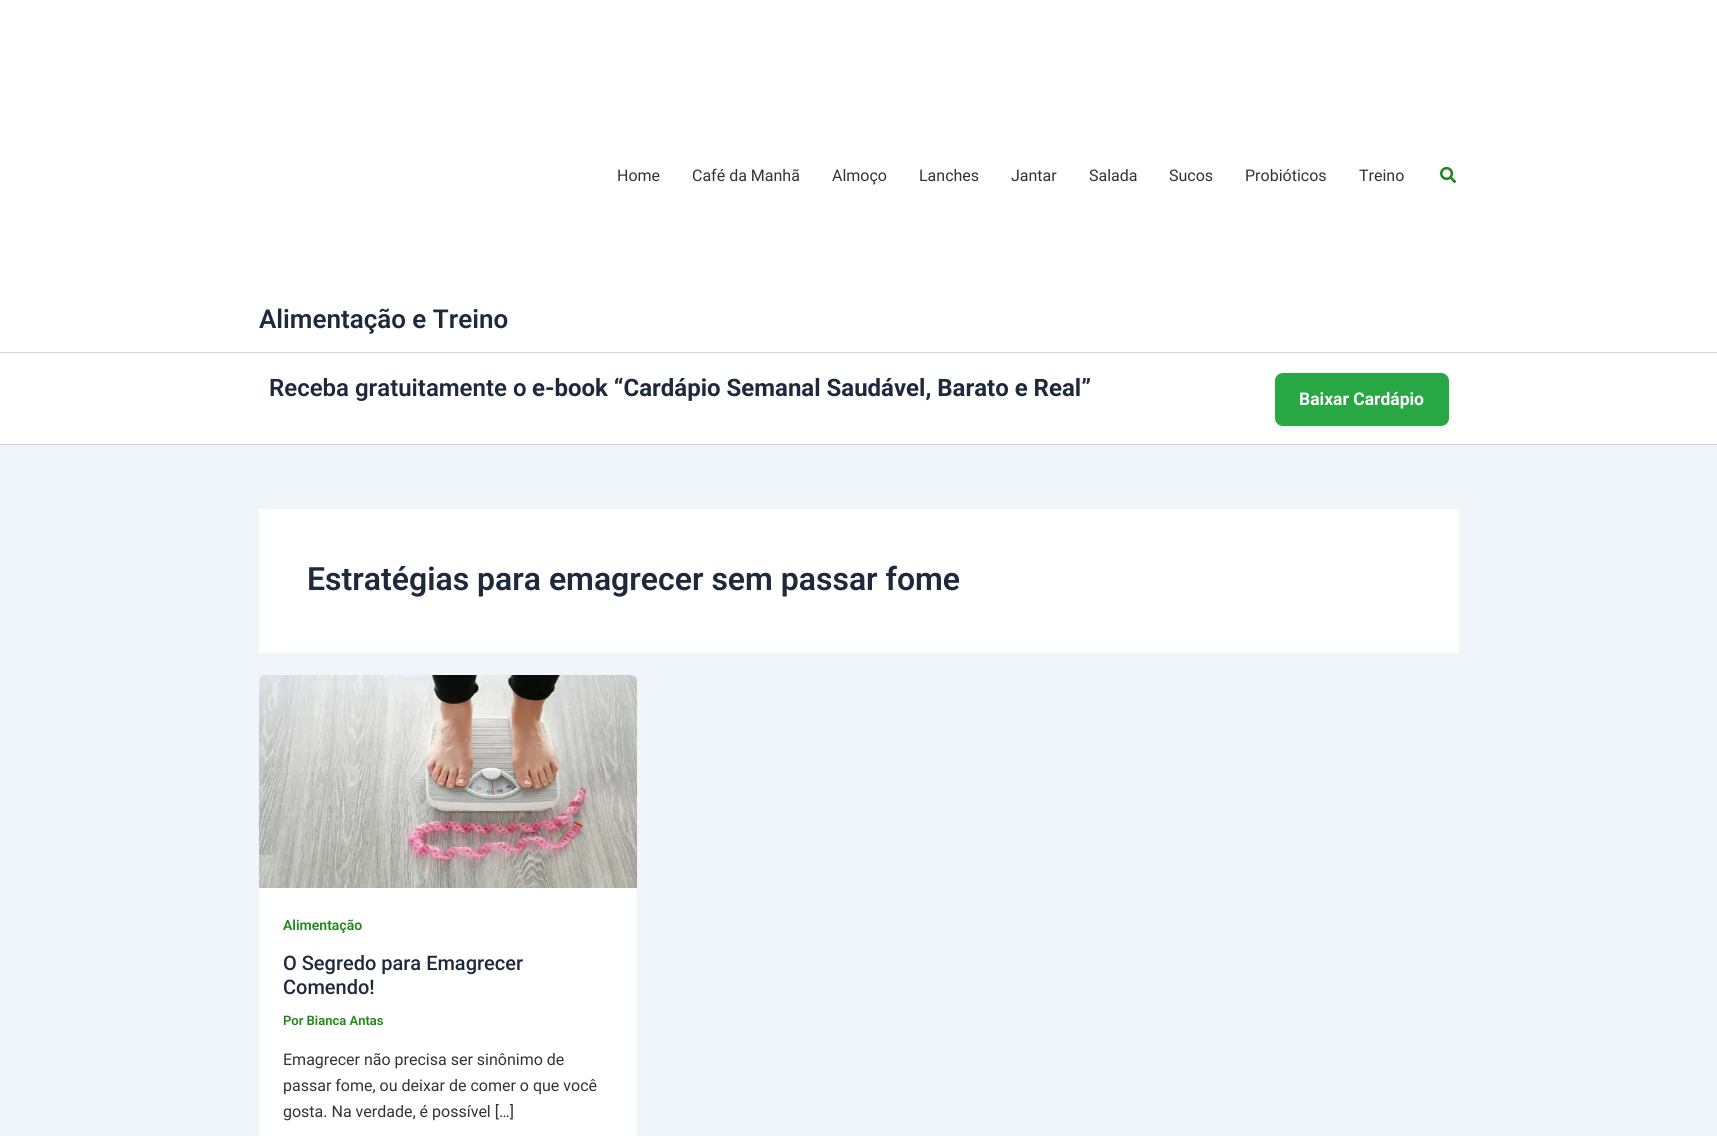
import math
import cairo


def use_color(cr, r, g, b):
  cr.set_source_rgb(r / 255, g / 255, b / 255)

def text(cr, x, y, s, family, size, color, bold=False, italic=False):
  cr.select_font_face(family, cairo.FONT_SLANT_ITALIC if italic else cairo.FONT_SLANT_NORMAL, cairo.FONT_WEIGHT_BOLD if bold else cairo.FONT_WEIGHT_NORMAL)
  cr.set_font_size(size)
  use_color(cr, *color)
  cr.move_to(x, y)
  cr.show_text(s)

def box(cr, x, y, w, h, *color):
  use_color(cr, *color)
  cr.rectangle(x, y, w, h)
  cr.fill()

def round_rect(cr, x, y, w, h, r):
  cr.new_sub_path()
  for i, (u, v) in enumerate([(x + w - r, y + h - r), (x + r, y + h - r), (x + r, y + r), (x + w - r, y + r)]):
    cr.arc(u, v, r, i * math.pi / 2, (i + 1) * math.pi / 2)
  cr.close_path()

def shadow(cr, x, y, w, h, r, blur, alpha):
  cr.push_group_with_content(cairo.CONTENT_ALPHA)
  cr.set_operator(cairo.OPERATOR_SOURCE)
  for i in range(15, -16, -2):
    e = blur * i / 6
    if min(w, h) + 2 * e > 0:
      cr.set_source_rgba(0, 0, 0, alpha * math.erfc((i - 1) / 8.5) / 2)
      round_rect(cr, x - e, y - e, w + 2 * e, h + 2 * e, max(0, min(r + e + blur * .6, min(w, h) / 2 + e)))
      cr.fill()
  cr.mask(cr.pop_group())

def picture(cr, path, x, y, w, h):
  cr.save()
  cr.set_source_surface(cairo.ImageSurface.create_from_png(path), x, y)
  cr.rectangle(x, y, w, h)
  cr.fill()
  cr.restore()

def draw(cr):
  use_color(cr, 240, 245, 250)
  cr.paint()
  box(cr, 0, 0, 1717, 352, 255, 255, 255)
  box(cr, 0, 352, 1717, 1, 209, 213, 219)
  picture(cr, "img_01.png", 1440, 166, 17, 17)
  box(cr, 0, 353, 1717, 91, 255, 255, 255)
  box(cr, 0, 444, 1717, 1, 209, 213, 219)
  use_color(cr, 0, 0, 0)
  shadow(cr, 1275, 377, 174, 53, 8, 3, 0.05)
  use_color(cr, 40, 167, 69)
  round_rect(cr, 1275, 373, 174, 53, 8)
  cr.fill()
  box(cr, 259, 509, 1200, 144, 255, 255, 255)
  round_rect(cr, 259, 675, 378, 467, 6)
  cr.fill()
  picture(cr, "img_02.png", 259, 675, 378, 213)
  text(cr, 617, 181, "Home", "Roboto", 16, (51, 51, 51))
  text(cr, 692, 181, "Café da Manhã", "Roboto", 16, (51, 51, 51))
  text(cr, 832, 181, "Almoço", "Roboto", 16, (51, 51, 51))
  text(cr, 919, 181, "Lanches", "Roboto", 16, (51, 51, 51))
  text(cr, 1011, 181, "Jantar", "Roboto", 16, (51, 51, 51))
  text(cr, 1089, 181, "Salada", "Roboto", 16, (51, 51, 51))
  text(cr, 1169, 181, "Sucos", "Roboto", 16, (51, 51, 51))
  text(cr, 1245, 181, "Probióticos", "Roboto", 16, (51, 51, 51))
  text(cr, 1359, 181, "Treino", "Roboto", 16, (51, 51, 51))
  text(cr, 259, 328, "Alimentação e Treino", "Roboto SemiBold", 26, (30, 41, 59))
  text(cr, 269, 396, "Receba gratuitamente o", "Roboto SemiBold", 24, (30, 41, 59))
  text(cr, 532, 396, "e-book “Cardápio Semanal Saudável, Barato e Real”", "Roboto", 24, (30, 41, 59), bold=True)
  text(cr, 1299, 405, "Baixar Cardápio", "Roboto", 17.5, (255, 255, 255), bold=True)
  text(cr, 307, 590, "Estratégias para emagrecer sem passar fome", "Roboto SemiBold", 32, (30, 41, 59))
  text(cr, 283, 930, "Alimentação", "Roboto SemiBold", 14, (28, 136, 22))
  text(cr, 283, 970, "O Segredo para Emagrecer", "Roboto Medium", 20, (30, 41, 59))
  text(cr, 283, 994, "Comendo!", "Roboto Medium", 20, (30, 41, 59))
  text(cr, 283, 1025, "Por Bianca Antas", "Roboto SemiBold", 13, (28, 136, 22))
  text(cr, 283, 1065, "Emagrecer não precisa ser sinônimo de", "Roboto", 16, (51, 51, 51))
  text(cr, 283, 1091, "passar fome, ou deixar de comer o que você", "Roboto", 16, (51, 51, 51))
  text(cr, 283, 1117, "gosta. Na verdade, é possível […]", "Roboto", 16, (51, 51, 51))


surface = cairo.ImageSurface(cairo.FORMAT_RGB24, 1717, 1136)
cr = cairo.Context(surface)
options = cairo.FontOptions()
options.set_hint_metrics(cairo.HINT_METRICS_OFF)
options.set_hint_style(cairo.HINT_STYLE_NONE)
cr.set_font_options(options)
cr.set_miter_limit(4)
draw(cr)
surface.write_to_png("out.png")
